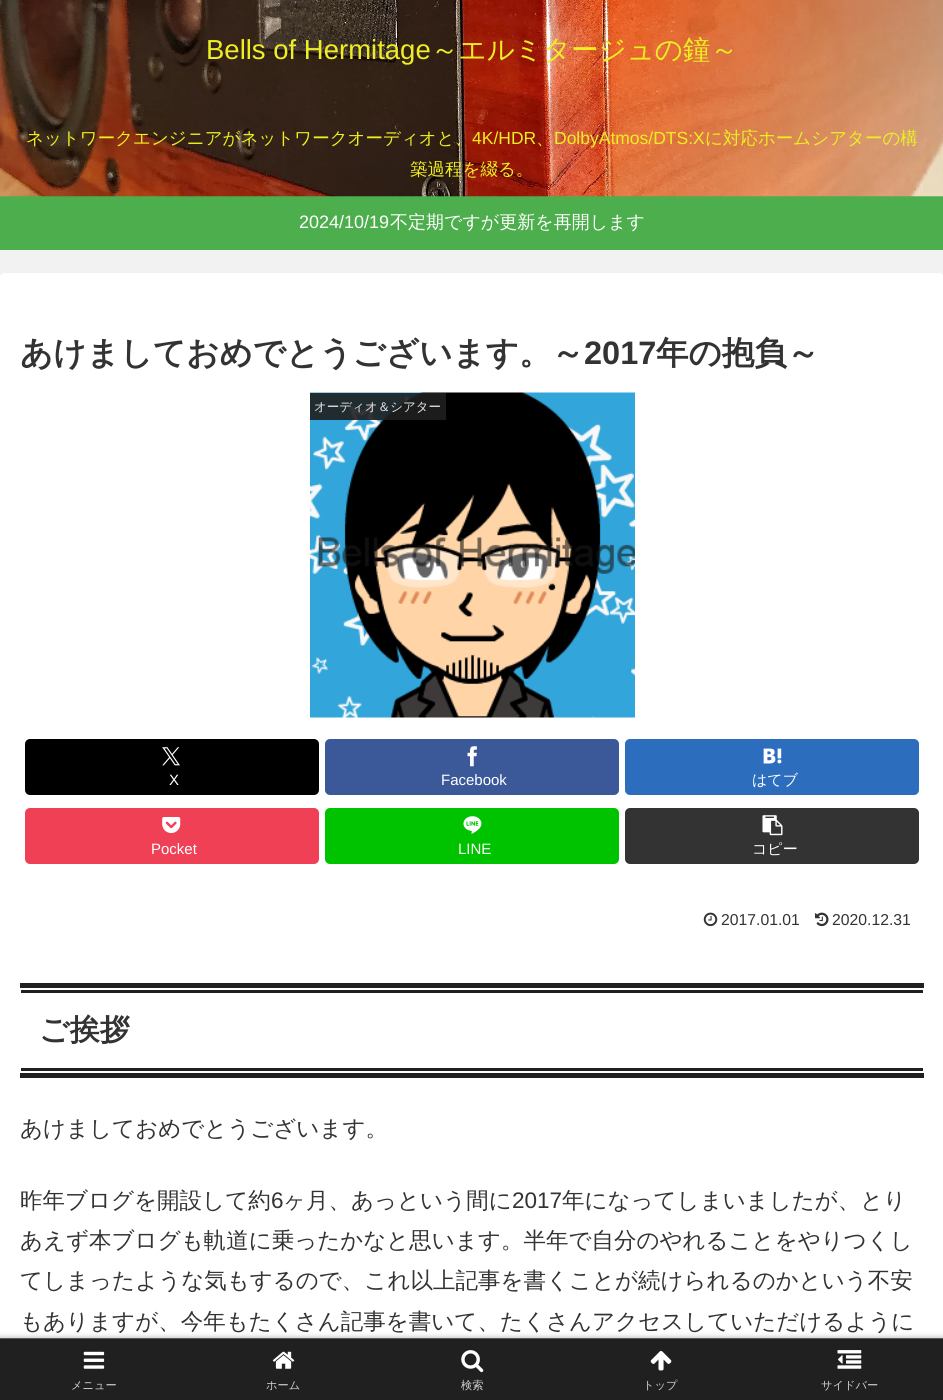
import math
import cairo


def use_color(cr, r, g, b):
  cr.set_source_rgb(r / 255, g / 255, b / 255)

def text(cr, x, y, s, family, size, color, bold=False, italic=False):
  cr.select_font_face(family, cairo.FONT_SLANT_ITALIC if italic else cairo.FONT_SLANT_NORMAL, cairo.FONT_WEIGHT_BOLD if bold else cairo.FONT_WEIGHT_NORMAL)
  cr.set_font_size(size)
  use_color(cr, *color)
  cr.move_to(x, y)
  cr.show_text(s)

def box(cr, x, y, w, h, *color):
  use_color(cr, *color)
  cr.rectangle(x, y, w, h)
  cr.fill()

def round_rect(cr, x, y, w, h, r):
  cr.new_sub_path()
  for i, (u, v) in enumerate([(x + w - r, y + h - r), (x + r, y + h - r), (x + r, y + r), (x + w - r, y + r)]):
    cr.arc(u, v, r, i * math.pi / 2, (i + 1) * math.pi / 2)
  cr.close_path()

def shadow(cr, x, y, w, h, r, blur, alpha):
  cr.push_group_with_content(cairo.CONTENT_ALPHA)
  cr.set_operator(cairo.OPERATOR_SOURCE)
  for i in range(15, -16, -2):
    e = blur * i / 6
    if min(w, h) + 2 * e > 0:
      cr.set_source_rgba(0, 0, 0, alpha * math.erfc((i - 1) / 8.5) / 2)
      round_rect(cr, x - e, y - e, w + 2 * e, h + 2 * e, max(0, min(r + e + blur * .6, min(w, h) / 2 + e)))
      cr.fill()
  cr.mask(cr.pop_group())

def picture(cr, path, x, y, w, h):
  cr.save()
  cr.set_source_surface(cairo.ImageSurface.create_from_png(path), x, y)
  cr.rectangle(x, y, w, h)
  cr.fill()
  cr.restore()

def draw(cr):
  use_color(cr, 242, 242, 242)
  cr.paint()
  box(cr, 0, 196, 943, 54, 76, 174, 76)
  picture(cr, "img_01.png", 0, 0, 943, 197)
  use_color(cr, 255, 255, 255)
  round_rect(cr, 0, 273, 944, 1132, 5)
  cr.fill()
  picture(cr, "img_02.png", 310, 392, 325, 326)
  cr.set_source_rgba(0.125, 0.125, 0.125, 0.9)
  cr.rectangle(310, 393, 136, 27)
  cr.fill()
  use_color(cr, 0, 0, 0)
  round_rect(cr, 25, 739, 294, 56, 5)
  cr.fill()
  picture(cr, "img_03.png", 162, 747, 18, 19)
  use_color(cr, 59, 89, 152)
  round_rect(cr, 325, 739, 294, 56, 5)
  cr.fill()
  picture(cr, "img_04.png", 467, 746, 10, 21)
  use_color(cr, 44, 110, 189)
  round_rect(cr, 625, 739, 294, 56, 5)
  cr.fill()
  picture(cr, "img_05.png", 763, 748, 19, 16)
  use_color(cr, 239, 64, 86)
  round_rect(cr, 25, 808, 294, 56, 5)
  cr.fill()
  picture(cr, "img_06.png", 162, 817, 19, 17)
  use_color(cr, 0, 195, 0)
  round_rect(cr, 325, 808, 294, 56, 5)
  cr.fill()
  picture(cr, "img_07.png", 463, 816, 19, 18)
  use_color(cr, 51, 51, 51)
  round_rect(cr, 625, 808, 294, 56, 5)
  cr.fill()
  picture(cr, "img_08.png", 762, 815, 21, 21)
  picture(cr, "img_09.png", 703, 912, 15, 15)
  picture(cr, "img_10.png", 815, 912, 14, 15)
  box(cr, 21, 990, 902, 3, 32, 32, 32)
  box(cr, 21, 1068, 902, 3, 32, 32, 32)
  box(cr, 20, 983, 904, 5, 32, 32, 32)
  box(cr, 20, 1073, 904, 5, 32, 32, 32)
  use_color(cr, 169, 169, 169)
  shadow(cr, 0, 1338, 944, 62, 0, 3, 1)
  box(cr, 0, 1339, 943, 61, 32, 32, 32)
  box(cr, 0, 1338, 943, 1, 89, 88, 87)
  picture(cr, "img_11.png", 83, 1351, 22, 18)
  picture(cr, "img_12.png", 272, 1351, 23, 18)
  picture(cr, "img_13.png", 461, 1350, 23, 23)
  picture(cr, "img_14.png", 650, 1351, 22, 20)
  picture(cr, "img_15.png", 837, 1350, 25, 19)
  text(cr, 206, 59, "Bells of Hermitage", "Liberation Sans", 27.5, (238, 238, 34))
  text(cr, 431, 59, "～エルミタージュの鐘～", "WenQuanYi Zen Hei Medium", 27.5, (238, 238, 34))
  text(cr, 26, 144, "ネットワークエンジニアがネットワークオーディオと、", "WenQuanYi Zen Hei Medium", 17.5, (238, 238, 34))
  text(cr, 472, 144, "4K/HDR", "Liberation Sans", 17.5, (238, 238, 34))
  text(cr, 536, 144, "、", "WenQuanYi Zen Hei Medium", 17.5, (238, 238, 34))
  text(cr, 554, 144, "DolbyAtmos/DTS:X", "Liberation Sans", 17.5, (238, 238, 34))
  text(cr, 705, 144, "に対応ホームシアターの構", "WenQuanYi Zen Hei Medium", 17.5, (238, 238, 34))
  text(cr, 410, 175, "築過程を綴る。", "WenQuanYi Zen Hei Medium", 17.5, (238, 238, 34))
  text(cr, 299, 228, "2024/10/19", "Liberation Sans", 18, (255, 255, 255))
  text(cr, 390, 228, "不定期ですが更新を再開します", "WenQuanYi Zen Hei Medium", 18, (255, 255, 255))
  text(cr, 20, 364, "あけましておめでとうございます。～", "WenQuanYi Zen Hei", 32.5, (51, 51, 51), bold=True)
  text(cr, 584, 364, "2017", "Liberation Sans", 32.5, (51, 51, 51), bold=True)
  text(cr, 656, 364, "年の抱負～", "WenQuanYi Zen Hei", 32.5, (51, 51, 51), bold=True)
  text(cr, 314, 411, "オーディオ＆シアター", "WenQuanYi Zen Hei Medium", 12.5, (233, 234, 234))
  text(cr, 169, 785, "X", "Liberation Sans", 15, (255, 255, 255))
  text(cr, 441, 785, "Facebook", "Liberation Sans", 15, (255, 255, 255))
  text(cr, 752, 785, "はてブ", "WenQuanYi Zen Hei Medium", 15, (255, 255, 255))
  text(cr, 151, 854, "Pocket", "Liberation Sans", 15, (255, 255, 255))
  text(cr, 458, 854, "LINE", "Liberation Sans", 15, (255, 255, 255))
  text(cr, 752, 854, "コピー", "WenQuanYi Zen Hei Medium", 15, (255, 255, 255))
  text(cr, 721, 925, "2017.01.01", "Liberation Sans", 15.75, (51, 51, 51))
  text(cr, 832, 925, "2020.12.31", "Liberation Sans", 15.75, (51, 51, 51))
  text(cr, 39, 1040, "ご挨拶", "WenQuanYi Zen Hei", 30, (51, 51, 51), bold=True)
  text(cr, 20, 1136, "あけましておめでとうございます。", "WenQuanYi Zen Hei Medium", 22.5, (51, 51, 51))
  text(cr, 20, 1208, "昨年ブログを開設して約", "WenQuanYi Zen Hei Medium", 22.5, (51, 51, 51))
  text(cr, 271, 1208, "6", "Liberation Sans", 22.5, (51, 51, 51))
  text(cr, 283, 1208, "ヶ月、あっという間に", "WenQuanYi Zen Hei Medium", 22.5, (51, 51, 51))
  text(cr, 512, 1208, "2017", "Liberation Sans", 22.5, (51, 51, 51))
  text(cr, 562, 1208, "年になってしまいましたが、とり", "WenQuanYi Zen Hei Medium", 22.5, (51, 51, 51))
  text(cr, 20, 1248, "あえず本ブログも軌道に乗ったかなと思います。半年で自分のやれることをやりつくし", "WenQuanYi Zen Hei Medium", 22.5, (51, 51, 51))
  text(cr, 20, 1288, "てしまったような気もするので、これ以上記事を書くことが続けられるのかという不安", "WenQuanYi Zen Hei Medium", 22.5, (51, 51, 51))
  text(cr, 20, 1329, "もありますが、今年もたくさん記事を書いて、たくさんアクセスしていただけるように", "WenQuanYi Zen Hei Medium", 22.5, (51, 51, 51))
  text(cr, 71, 1389, "メニュー", "WenQuanYi Zen Hei Medium", 11.25, (210, 210, 210))
  text(cr, 266, 1389, "ホーム", "WenQuanYi Zen Hei Medium", 11.25, (210, 210, 210))
  text(cr, 461, 1389, "検索", "WenQuanYi Zen Hei Medium", 11.25, (210, 210, 210))
  text(cr, 643, 1389, "トップ", "WenQuanYi Zen Hei Medium", 11.25, (210, 210, 210))
  text(cr, 821, 1389, "サイドバー", "WenQuanYi Zen Hei Medium", 11.25, (210, 210, 210))


surface = cairo.ImageSurface(cairo.FORMAT_RGB24, 943, 1400)
cr = cairo.Context(surface)
options = cairo.FontOptions()
options.set_hint_metrics(cairo.HINT_METRICS_OFF)
options.set_hint_style(cairo.HINT_STYLE_NONE)
cr.set_font_options(options)
cr.set_miter_limit(4)
draw(cr)
surface.write_to_png("out.png")
